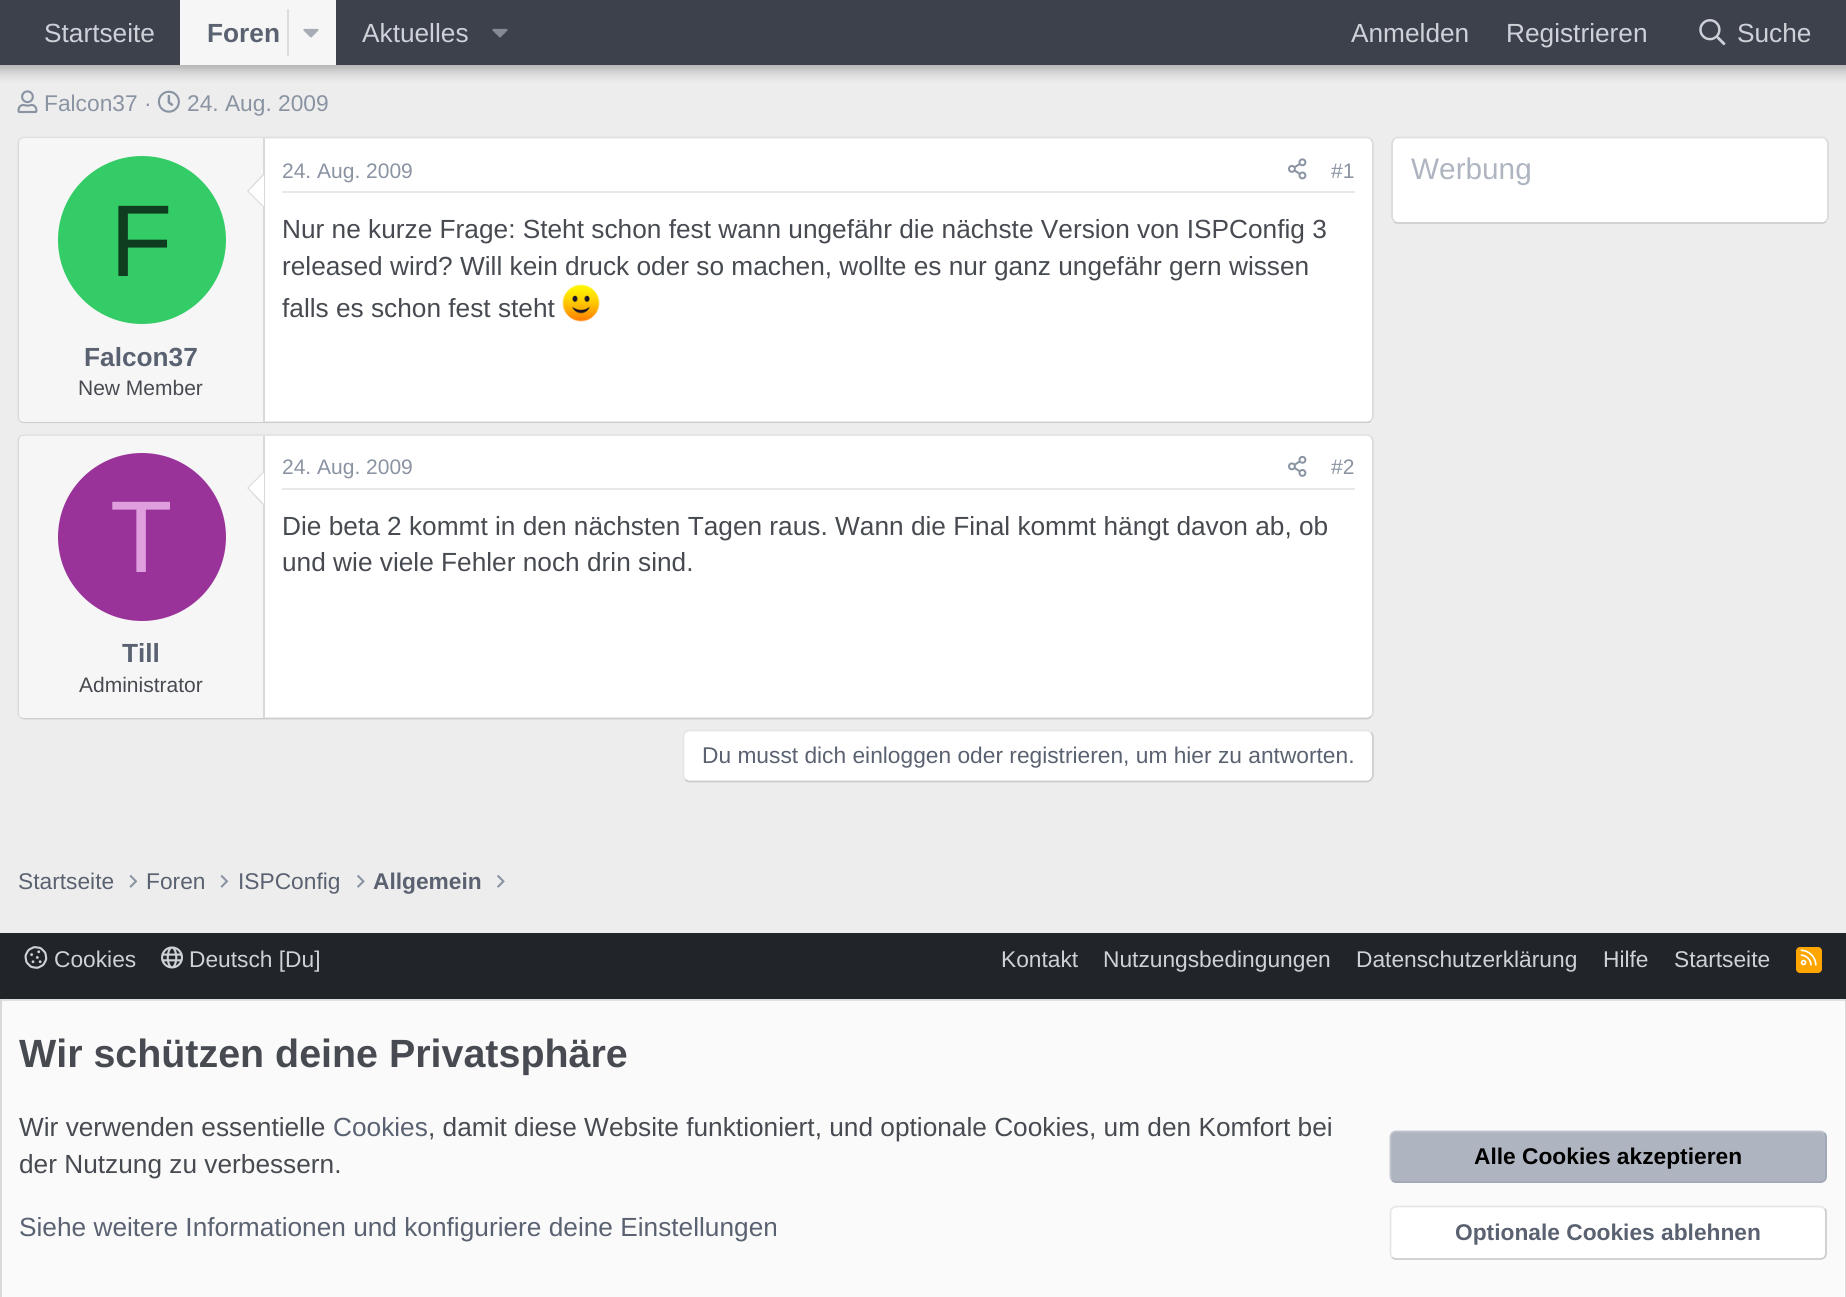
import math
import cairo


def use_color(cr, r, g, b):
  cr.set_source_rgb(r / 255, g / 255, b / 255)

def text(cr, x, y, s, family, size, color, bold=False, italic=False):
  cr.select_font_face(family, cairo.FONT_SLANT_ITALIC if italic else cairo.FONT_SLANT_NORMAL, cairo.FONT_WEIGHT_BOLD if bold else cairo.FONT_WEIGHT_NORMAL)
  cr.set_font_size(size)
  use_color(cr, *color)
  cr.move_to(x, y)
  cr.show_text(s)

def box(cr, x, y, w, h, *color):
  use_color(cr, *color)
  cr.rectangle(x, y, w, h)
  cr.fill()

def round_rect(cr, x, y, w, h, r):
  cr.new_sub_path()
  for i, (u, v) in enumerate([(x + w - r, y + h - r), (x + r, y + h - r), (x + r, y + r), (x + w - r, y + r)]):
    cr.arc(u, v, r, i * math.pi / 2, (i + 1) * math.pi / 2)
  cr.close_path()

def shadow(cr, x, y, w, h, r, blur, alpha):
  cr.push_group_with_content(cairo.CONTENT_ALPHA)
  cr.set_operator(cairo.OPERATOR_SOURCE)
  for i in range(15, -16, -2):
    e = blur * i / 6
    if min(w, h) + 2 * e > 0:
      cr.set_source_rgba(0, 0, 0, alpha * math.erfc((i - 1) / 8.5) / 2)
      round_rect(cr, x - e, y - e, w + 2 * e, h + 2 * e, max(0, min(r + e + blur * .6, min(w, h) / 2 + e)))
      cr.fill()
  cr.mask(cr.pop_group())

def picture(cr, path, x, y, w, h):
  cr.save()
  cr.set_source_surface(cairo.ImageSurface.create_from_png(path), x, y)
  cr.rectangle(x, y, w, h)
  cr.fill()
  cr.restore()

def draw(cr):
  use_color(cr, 237, 237, 237)
  cr.paint()
  picture(cr, "img_04.png", 17, 90, 21, 24)
  picture(cr, "img_05.png", 157, 90, 23, 23)
  use_color(cr, 0, 0, 0)
  shadow(cr, -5, -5, 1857, 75, 0, 7, 0.3)
  box(cr, 0, 0, 1846, 65, 60, 65, 75)
  box(cr, 180, 0, 156, 65, 246, 246, 246)
  box(cr, 287, 9, 2, 47, 219, 220, 223)
  picture(cr, "img_01.png", 303, 28, 16, 10)
  picture(cr, "img_02.png", 492, 28, 16, 10)
  picture(cr, "img_03.png", 1699, 19, 27, 27)
  use_color(cr, 255, 255, 255)
  round_rect(cr, 18, 137, 1356, 287, 7)
  cr.fill()
  cr.new_path()
  cr.move_to(20, 139)
  cr.curve_to(21.5, 138, 23, 137.5, 24.5, 137.5)
  cr.line_to(1367, 137.5)
  cr.curve_to(1368.5, 137.5, 1370, 138, 1371, 139)
  use_color(cr, 224, 224, 224)
  cr.set_line_width(1.8)
  cr.stroke()
  cr.new_path()
  cr.move_to(1371, 139)
  cr.curve_to(1372, 140.5, 1373, 142, 1373, 143.5)
  cr.line_to(1373, 416.5)
  cr.curve_to(1373, 418, 1372, 419.5, 1371, 421)
  use_color(cr, 217, 217, 217)
  cr.stroke()
  cr.new_path()
  cr.move_to(1371, 421)
  cr.curve_to(1370, 422, 1368.5, 422.5, 1367, 422.5)
  cr.line_to(24.5, 422.5)
  cr.curve_to(23, 422.5, 21.5, 422, 20, 421)
  use_color(cr, 204, 204, 204)
  cr.stroke()
  cr.new_path()
  cr.move_to(20, 421)
  cr.curve_to(19, 419.5, 18.5, 418, 18.5, 416.5)
  cr.line_to(18.5, 143.5)
  cr.curve_to(18.5, 142, 19, 140.5, 20, 139)
  use_color(cr, 217, 217, 217)
  cr.stroke()
  use_color(cr, 246, 246, 246)
  cr.new_path()
  cr.move_to(24, 138)
  cr.line_to(264, 138)
  cr.line_to(264, 422)
  cr.line_to(24, 422)
  cr.curve_to(21, 422, 19, 420, 19, 417)
  cr.line_to(19, 143)
  cr.curve_to(19, 140, 21, 138, 24, 138)
  cr.close_path()
  cr.fill()
  box(cr, 263, 138, 2, 284, 217, 217, 217)
  cr.new_path()
  cr.move_to(264, 173)
  cr.line_to(264, 208)
  cr.line_to(247, 191)
  cr.close_path()
  cr.fill()
  use_color(cr, 255, 255, 255)
  cr.new_path()
  cr.move_to(264, 175)
  cr.line_to(264, 206.5)
  cr.line_to(248.5, 191)
  cr.close_path()
  cr.fill()
  use_color(cr, 51, 204, 102)
  cr.arc(142, 240, 84, 0, 2 * math.pi)
  cr.fill()
  box(cr, 282, 191, 1073, 2, 232, 232, 232)
  picture(cr, "img_06.png", 1288, 158, 19, 22)
  picture(cr, "img_07.png", 562, 284, 38, 38)
  use_color(cr, 255, 255, 255)
  round_rect(cr, 18, 434, 1356, 285, 7)
  cr.fill()
  cr.new_path()
  cr.move_to(20, 436.5)
  cr.curve_to(21.5, 435.5, 23, 435, 24.5, 435)
  cr.line_to(1367, 435)
  cr.curve_to(1368.5, 435, 1370, 435.5, 1371, 436.5)
  use_color(cr, 224, 224, 224)
  cr.stroke()
  cr.new_path()
  cr.move_to(1371, 436.5)
  cr.curve_to(1372, 438, 1373, 439.5, 1373, 441)
  cr.line_to(1373, 712)
  cr.curve_to(1373, 714, 1372, 715.5, 1371, 716.5)
  use_color(cr, 217, 217, 217)
  cr.stroke()
  cr.new_path()
  cr.move_to(1371, 716.5)
  cr.curve_to(1370, 717.5, 1368.5, 718.5, 1367, 718.5)
  cr.line_to(24.5, 718.5)
  cr.curve_to(23, 718.5, 21.5, 717.5, 20, 716.5)
  use_color(cr, 204, 204, 204)
  cr.stroke()
  cr.new_path()
  cr.move_to(20, 716.5)
  cr.curve_to(19, 715.5, 18.5, 714, 18.5, 712)
  cr.line_to(18.5, 441)
  cr.curve_to(18.5, 439.5, 19, 438, 20, 436.5)
  use_color(cr, 217, 217, 217)
  cr.stroke()
  use_color(cr, 246, 246, 246)
  cr.new_path()
  cr.move_to(24, 436)
  cr.line_to(264, 436)
  cr.line_to(264, 718)
  cr.line_to(24, 718)
  cr.curve_to(21, 718, 19, 716, 19, 713)
  cr.line_to(19, 441)
  cr.curve_to(19, 438, 21, 436, 24, 436)
  cr.close_path()
  cr.fill()
  box(cr, 263, 436, 2, 282, 217, 217, 217)
  cr.new_path()
  cr.move_to(264, 471)
  cr.line_to(264, 506)
  cr.line_to(247, 488)
  cr.close_path()
  cr.fill()
  use_color(cr, 255, 255, 255)
  cr.new_path()
  cr.move_to(264, 472.5)
  cr.line_to(264, 504)
  cr.line_to(248.5, 488)
  cr.close_path()
  cr.fill()
  use_color(cr, 153, 51, 153)
  cr.arc(142, 537, 84, 0, 2 * math.pi)
  cr.fill()
  box(cr, 282, 488, 1073, 2, 232, 232, 232)
  picture(cr, "img_08.png", 1288, 455, 19, 22)
  use_color(cr, 255, 255, 255)
  round_rect(cr, 683, 730, 691, 52, 7)
  cr.fill()
  cr.new_path()
  cr.move_to(1371, 732.5)
  cr.curve_to(1372, 733.5, 1373, 735, 1373, 737)
  cr.line_to(1373, 775)
  cr.curve_to(1373, 777, 1372, 778.5, 1371, 779.5)
  cr.curve_to(1370, 780.5, 1368.5, 781.5, 1367, 781.5)
  cr.line_to(689.5, 781.5)
  cr.curve_to(688, 781.5, 686.5, 780.5, 685, 779.5)
  use_color(cr, 204, 204, 204)
  cr.stroke()
  cr.new_path()
  cr.move_to(685, 779.5)
  cr.curve_to(684, 778.5, 683.5, 777, 683.5, 775)
  cr.line_to(683.5, 737)
  cr.curve_to(683.5, 735, 684, 733.5, 685, 732.5)
  cr.curve_to(686.5, 731.5, 688, 730.5, 689.5, 730.5)
  cr.line_to(1367, 730.5)
  cr.curve_to(1368.5, 730.5, 1370, 731.5, 1371, 732.5)
  use_color(cr, 230, 230, 230)
  cr.stroke()
  use_color(cr, 255, 255, 255)
  round_rect(cr, 1391, 137, 438, 87, 7)
  cr.fill()
  cr.new_path()
  cr.move_to(1394, 139)
  cr.curve_to(1395, 138, 1396.5, 137.5, 1398, 137.5)
  cr.line_to(1822, 137.5)
  cr.curve_to(1823.5, 137.5, 1825, 138, 1826, 139)
  use_color(cr, 224, 224, 224)
  cr.stroke()
  cr.new_path()
  cr.move_to(1826, 139)
  cr.curve_to(1827, 140.5, 1828, 142, 1828, 143.5)
  cr.line_to(1828, 217)
  cr.curve_to(1828, 218.5, 1827, 220, 1826, 221.5)
  use_color(cr, 217, 217, 217)
  cr.stroke()
  cr.new_path()
  cr.move_to(1826, 221.5)
  cr.curve_to(1825, 222.5, 1823.5, 223, 1822, 223)
  cr.line_to(1398, 223)
  cr.curve_to(1396.5, 223, 1395, 222.5, 1394, 221.5)
  use_color(cr, 204, 204, 204)
  cr.stroke()
  cr.new_path()
  cr.move_to(1394, 221.5)
  cr.curve_to(1393, 220, 1392, 218.5, 1392, 217)
  cr.line_to(1392, 143.5)
  cr.curve_to(1392, 142, 1393, 140.5, 1394, 139)
  use_color(cr, 217, 217, 217)
  cr.stroke()
  picture(cr, "img_09.png", 129, 875, 9, 13)
  picture(cr, "img_09.png", 220, 875, 9, 13)
  picture(cr, "img_10.png", 357, 875, 8, 13)
  picture(cr, "img_10.png", 497, 875, 8, 13)
  box(cr, 0, 933, 1846, 66, 33, 36, 41)
  picture(cr, "img_11.png", 24, 946, 24, 23)
  picture(cr, "img_12.png", 161, 946, 22, 23)
  use_color(cr, 255, 165, 0)
  round_rect(cr, 1796, 947, 26, 26, 4)
  cr.fill()
  picture(cr, "img_13.png", 1800, 949, 17, 17)
  box(cr, 2, 1001, 1843, 296, 250, 250, 251)
  box(cr, 0, 999, 1846, 2, 224, 224, 224)
  box(cr, 1845, 999, 1, 298, 217, 217, 217)
  box(cr, 0, 999, 2, 298, 217, 217, 217)
  use_color(cr, 175, 181, 192)
  round_rect(cr, 1390, 1131, 437, 52, 7)
  cr.fill()
  cr.new_path()
  cr.move_to(1824.5, 1133)
  cr.curve_to(1825.5, 1134.5, 1826, 1136, 1826, 1137.5)
  cr.line_to(1826, 1176)
  cr.curve_to(1826, 1177.5, 1825.5, 1179, 1824.5, 1180.5)
  cr.curve_to(1823, 1181.5, 1821.5, 1182, 1820, 1182)
  cr.line_to(1396.5, 1182)
  cr.curve_to(1395, 1182, 1393.5, 1181.5, 1392, 1180.5)
  use_color(cr, 161, 168, 181)
  cr.stroke()
  cr.new_path()
  cr.move_to(1392, 1180.5)
  cr.curve_to(1391, 1179, 1390.5, 1177.5, 1390.5, 1176)
  cr.line_to(1390.5, 1137.5)
  cr.curve_to(1390.5, 1136, 1391, 1134.5, 1392, 1133)
  cr.curve_to(1393.5, 1132, 1395, 1131.5, 1396.5, 1131.5)
  cr.line_to(1820, 1131.5)
  cr.curve_to(1821.5, 1131.5, 1823, 1132, 1824.5, 1133)
  use_color(cr, 189, 194, 203)
  cr.stroke()
  use_color(cr, 255, 255, 255)
  round_rect(cr, 1390, 1206, 437, 54, 7)
  cr.fill()
  cr.new_path()
  cr.move_to(1824.5, 1208.5)
  cr.curve_to(1825.5, 1209.5, 1826, 1211, 1826, 1213)
  cr.line_to(1826, 1253)
  cr.curve_to(1826, 1254.5, 1825.5, 1256, 1824.5, 1257.5)
  cr.curve_to(1823, 1258.5, 1821.5, 1259, 1820, 1259)
  cr.line_to(1396.5, 1259)
  cr.curve_to(1395, 1259, 1393.5, 1258.5, 1392, 1257.5)
  use_color(cr, 204, 204, 204)
  cr.stroke()
  cr.new_path()
  cr.move_to(1392, 1257.5)
  cr.curve_to(1391, 1256, 1390.5, 1254.5, 1390.5, 1253)
  cr.line_to(1390.5, 1213)
  cr.curve_to(1390.5, 1211, 1391, 1209.5, 1392, 1208.5)
  cr.curve_to(1393.5, 1207.5, 1395, 1206.5, 1396.5, 1206.5)
  cr.line_to(1820, 1206.5)
  cr.curve_to(1821.5, 1206.5, 1823, 1207.5, 1824.5, 1208.5)
  use_color(cr, 230, 230, 230)
  cr.stroke()
  text(cr, 44, 42, "Startseite", "Liberation Sans", 26.25, (206, 210, 216))
  text(cr, 207, 42, "Foren", "Liberation Sans", 26.25, (90, 98, 113), bold=True)
  text(cr, 362, 42, "Aktuelles", "Liberation Sans", 26.25, (206, 210, 216))
  text(cr, 1351, 42, "Anmelden", "Liberation Sans", 26.25, (206, 210, 216))
  text(cr, 1506, 42, "Registrieren", "Liberation Sans", 26.25, (206, 210, 216))
  text(cr, 1737, 42, "Suche", "Liberation Sans", 26.25, (206, 210, 216))
  text(cr, 44, 111, "Falcon37 ·", "Liberation Sans", 22.75, (138, 147, 162))
  text(cr, 187, 111, "24. Aug. 2009", "Liberation Sans", 22.75, (138, 147, 162))
  text(cr, 110, 276, "F", "Liberation Sans", 102, (15, 61, 31))
  text(cr, 84, 366, "Falcon37", "Liberation Sans", 26.25, (90, 98, 113), bold=True)
  text(cr, 78, 395, "New Member", "Liberation Sans", 21, (71, 75, 81))
  text(cr, 282, 178, "24. Aug. 2009", "Liberation Sans", 21, (138, 147, 162))
  text(cr, 1331, 178, "#1", "Liberation Sans", 21, (138, 147, 162))
  text(cr, 282, 238, "Nur ne kurze Frage: Steht schon fest wann ungefähr die nächste Version von ISPConfig 3", "Liberation Sans", 26.25, (71, 75, 81))
  text(cr, 282, 275, "released wird? Will kein druck oder so machen, wollte es nur ganz ungefähr gern wissen", "Liberation Sans", 26.25, (71, 75, 81))
  text(cr, 282, 317, "falls es schon fest steht", "Liberation Sans", 26.25, (71, 75, 81))
  text(cr, 110, 572, "T", "Liberation Sans", 102, (223, 159, 223))
  text(cr, 122, 662, "Till", "Liberation Sans", 26.25, (90, 98, 113), bold=True)
  text(cr, 79, 692, "Administrator", "Liberation Sans", 21, (71, 75, 81))
  text(cr, 282, 474, "24. Aug. 2009", "Liberation Sans", 21, (138, 147, 162))
  text(cr, 1331, 474, "#2", "Liberation Sans", 21, (138, 147, 162))
  text(cr, 282, 535, "Die beta 2 kommt in den nächsten Tagen raus. Wann die Final kommt hängt davon ab, ob", "Liberation Sans", 26.25, (71, 75, 81))
  text(cr, 282, 571, "und wie viele Fehler noch drin sind.", "Liberation Sans", 26.25, (71, 75, 81))
  text(cr, 702, 763, "Du musst dich einloggen oder registrieren, um hier zu antworten.", "Liberation Sans", 22.75, (90, 98, 113))
  text(cr, 1411, 179, "Werbung", "Liberation Sans", 29.75, (175, 181, 192))
  text(cr, 18, 889, "Startseite", "Liberation Sans", 22.75, (90, 98, 113))
  text(cr, 146, 889, "Foren", "Liberation Sans", 22.75, (90, 98, 113))
  text(cr, 238, 889, "ISPConfig", "Liberation Sans", 22.75, (90, 98, 113))
  text(cr, 373, 889, "Allgemein", "Liberation Sans", 22.75, (90, 98, 113), bold=True)
  text(cr, 54, 967, "Cookies", "Liberation Sans", 22.75, (206, 210, 216))
  text(cr, 189, 967, "Deutsch [Du]", "Liberation Sans", 22.75, (206, 210, 216))
  text(cr, 1001, 967, "Kontakt", "Liberation Sans", 22.75, (206, 210, 216))
  text(cr, 1103, 967, "Nutzungsbedingungen", "Liberation Sans", 22.75, (206, 210, 216))
  text(cr, 1356, 967, "Datenschutzerklärung", "Liberation Sans", 22.75, (206, 210, 216))
  text(cr, 1603, 967, "Hilfe", "Liberation Sans", 22.75, (206, 210, 216))
  text(cr, 1674, 967, "Startseite", "Liberation Sans", 22.75, (206, 210, 216))
  text(cr, 19, 1067, "Wir schützen deine Privatsphäre", "Liberation Sans", 39.4, (71, 75, 81), bold=True)
  text(cr, 19, 1136, "Wir verwenden essentielle", "Liberation Sans", 26.25, (71, 75, 81))
  text(cr, 333, 1136, "Cookies", "Liberation Sans", 26.25, (90, 98, 113))
  text(cr, 428, 1136, ", damit diese Website funktioniert, und optionale Cookies, um den Komfort bei", "Liberation Sans", 26.25, (71, 75, 81))
  text(cr, 19, 1173, "der Nutzung zu verbessern.", "Liberation Sans", 26.25, (71, 75, 81))
  text(cr, 19, 1236, "Siehe weitere Informationen und konfiguriere deine Einstellungen", "Liberation Sans", 26.25, (90, 98, 113))
  text(cr, 1474, 1164, "Alle Cookies akzeptieren", "Liberation Sans", 22.75, (0, 0, 0), bold=True)
  text(cr, 1455, 1240, "Optionale Cookies ablehnen", "Liberation Sans", 22.75, (90, 98, 113), bold=True)


surface = cairo.ImageSurface(cairo.FORMAT_RGB24, 1846, 1297)
cr = cairo.Context(surface)
options = cairo.FontOptions()
options.set_hint_metrics(cairo.HINT_METRICS_OFF)
options.set_hint_style(cairo.HINT_STYLE_NONE)
cr.set_font_options(options)
cr.set_miter_limit(4)
draw(cr)
surface.write_to_png("out.png")
